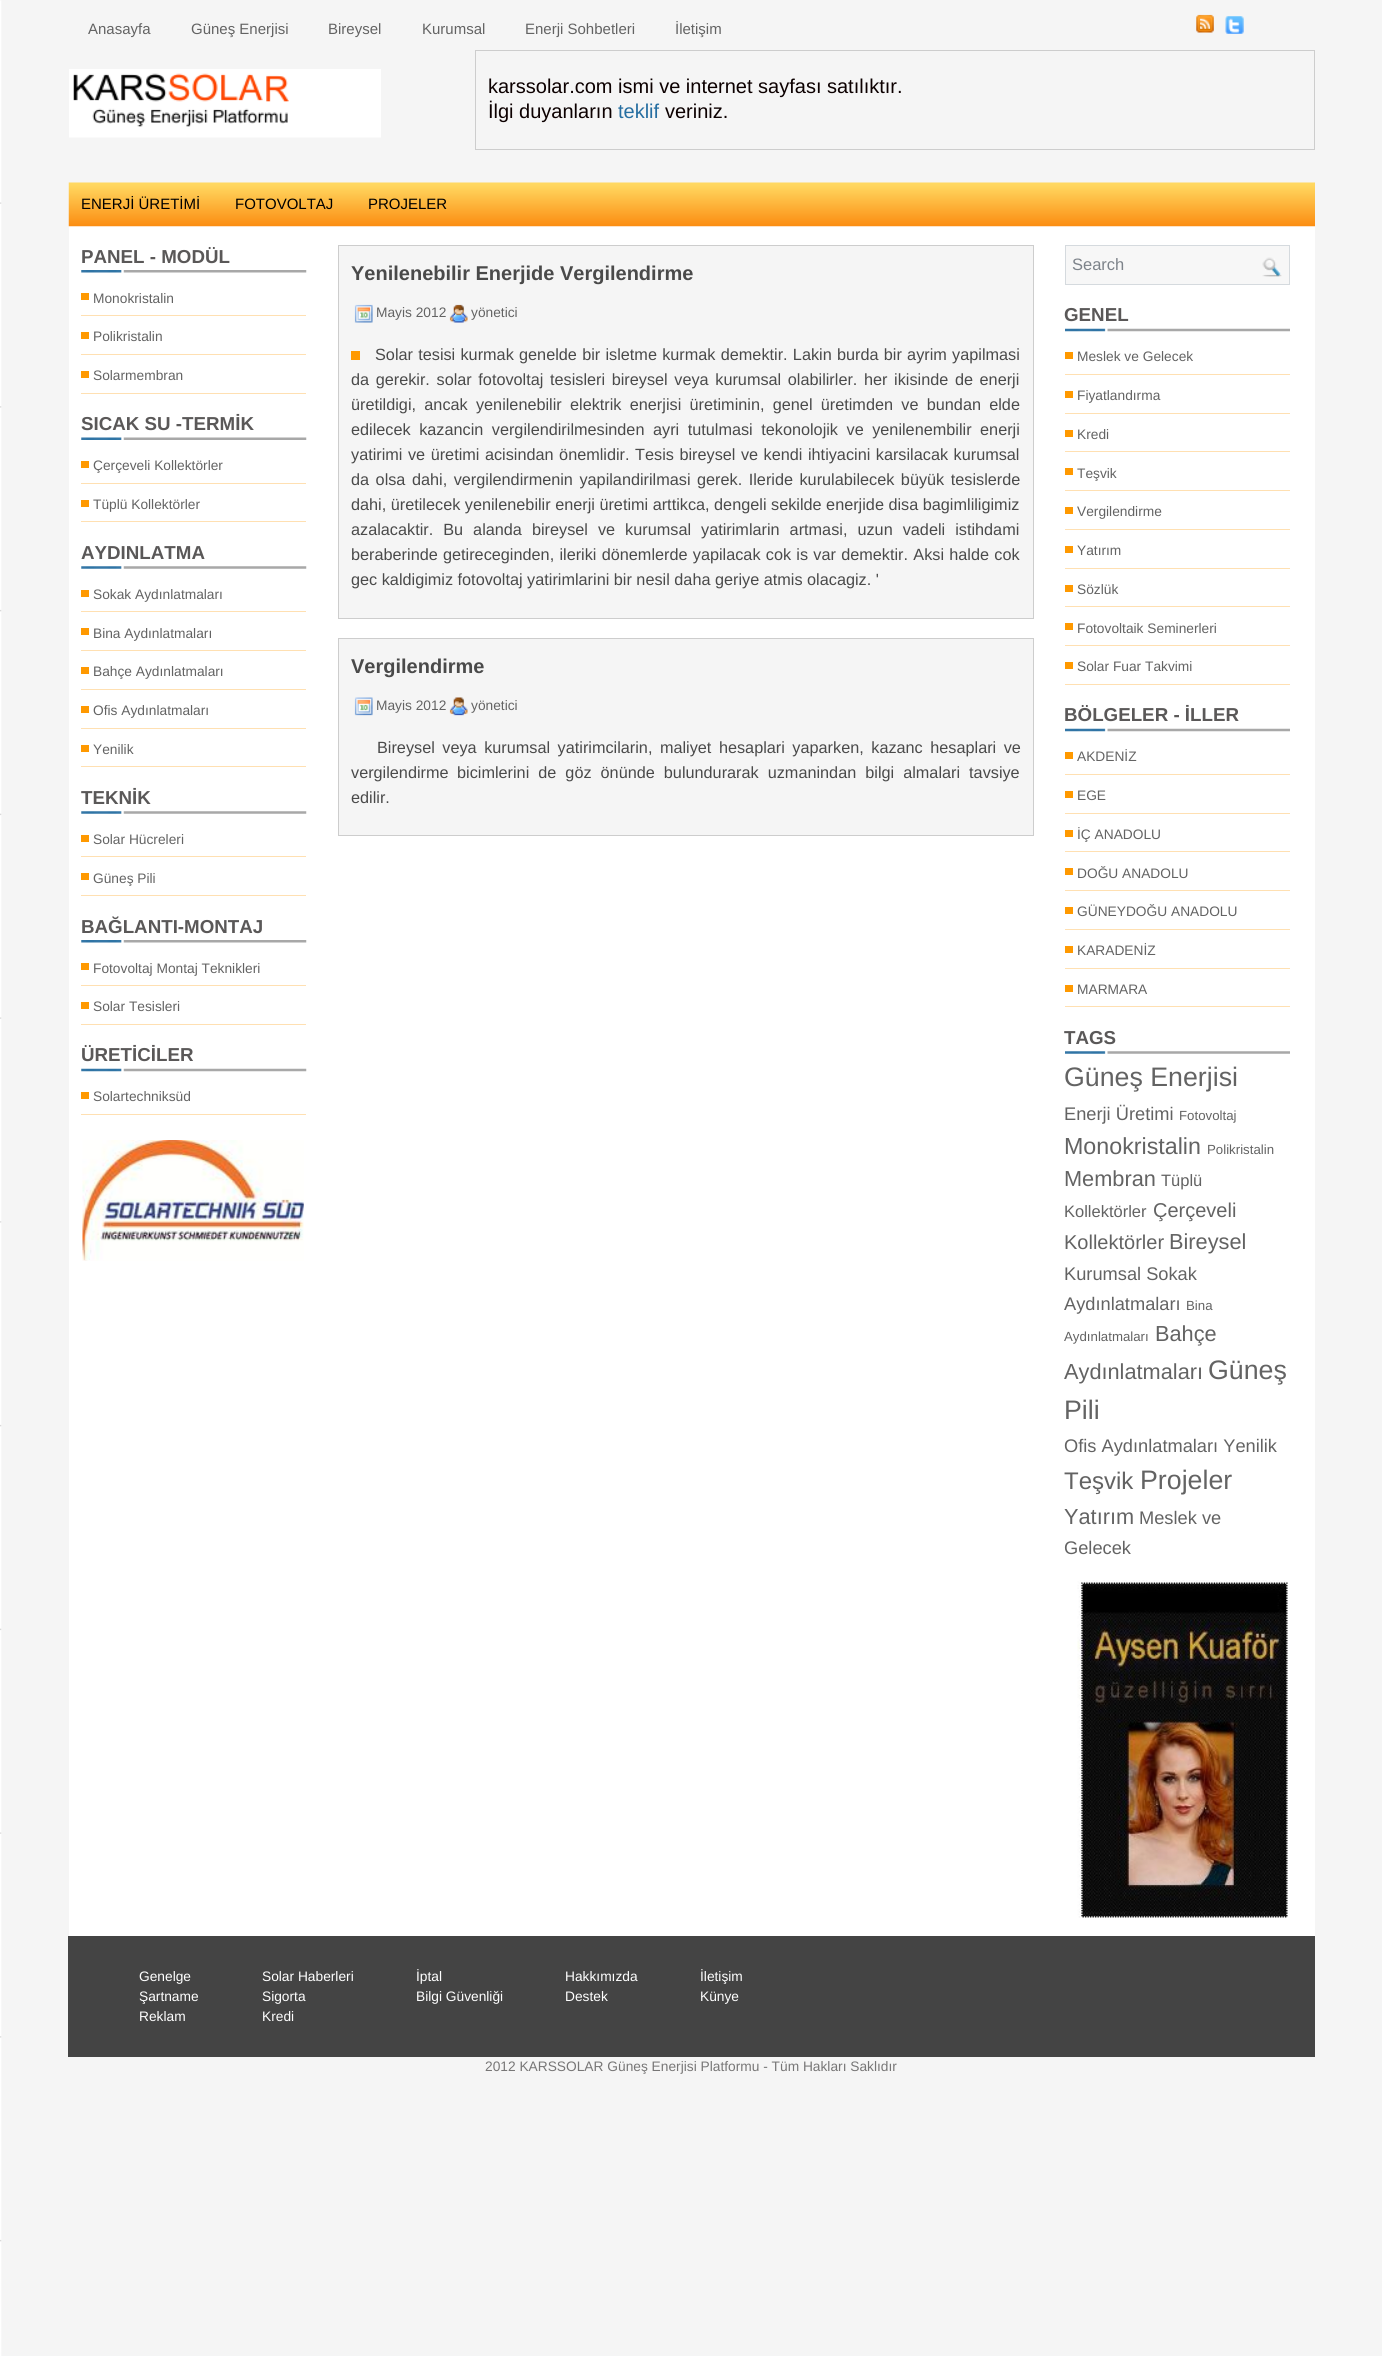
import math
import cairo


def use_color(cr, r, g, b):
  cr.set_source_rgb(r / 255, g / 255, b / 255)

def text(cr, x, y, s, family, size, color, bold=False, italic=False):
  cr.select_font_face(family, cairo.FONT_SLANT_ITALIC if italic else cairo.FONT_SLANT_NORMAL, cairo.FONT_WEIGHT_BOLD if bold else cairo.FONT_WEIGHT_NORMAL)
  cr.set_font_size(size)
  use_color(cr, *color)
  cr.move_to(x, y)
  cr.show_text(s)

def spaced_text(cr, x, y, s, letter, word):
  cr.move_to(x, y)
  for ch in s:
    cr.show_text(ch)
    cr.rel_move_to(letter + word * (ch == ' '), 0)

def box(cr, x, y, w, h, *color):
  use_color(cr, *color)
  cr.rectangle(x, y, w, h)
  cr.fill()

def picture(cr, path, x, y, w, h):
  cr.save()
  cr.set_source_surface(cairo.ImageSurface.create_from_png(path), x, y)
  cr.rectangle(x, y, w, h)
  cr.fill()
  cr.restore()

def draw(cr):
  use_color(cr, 245, 245, 245)
  cr.paint()
  picture(cr, "img_01.png", 0, 0, 2, 2356)
  picture(cr, "img_02.png", 1196, 14, 18, 19)
  picture(cr, "img_03.png", 1225, 16, 19, 18)
  picture(cr, "img_04.png", 69, 69, 312, 69)
  cr.rectangle(475.5, 50.5, 839, 99)
  use_color(cr, 205, 205, 205)
  cr.set_line_width(1)
  cr.stroke()
  box(cr, 69, 226, 1246, 1710, 255, 255, 255)
  picture(cr, "img_05.png", 68, 182, 1247, 45)
  picture(cr, "img_06.png", 81, 270, 226, 3)
  box(cr, 81, 293, 8, 7, 255, 153, 0)
  box(cr, 81, 315, 225, 1, 255, 224, 178)
  box(cr, 81, 332, 8, 7, 255, 153, 0)
  box(cr, 81, 354, 225, 1, 255, 224, 178)
  box(cr, 81, 371, 8, 7, 255, 153, 0)
  box(cr, 81, 393, 225, 1, 255, 224, 178)
  picture(cr, "img_07.png", 81, 437, 226, 3)
  box(cr, 81, 461, 8, 7, 255, 153, 0)
  box(cr, 81, 483, 225, 1, 255, 224, 178)
  box(cr, 81, 500, 8, 7, 255, 153, 0)
  box(cr, 81, 521, 225, 1, 255, 224, 178)
  picture(cr, "img_08.png", 81, 566, 226, 3)
  box(cr, 81, 590, 8, 7, 255, 153, 0)
  box(cr, 81, 611, 225, 1, 255, 224, 178)
  box(cr, 81, 628, 8, 7, 255, 153, 0)
  box(cr, 81, 650, 225, 1, 255, 224, 178)
  box(cr, 81, 667, 8, 7, 255, 153, 0)
  box(cr, 81, 689, 225, 1, 255, 224, 178)
  box(cr, 81, 706, 8, 7, 255, 153, 0)
  box(cr, 81, 728, 225, 1, 255, 224, 178)
  box(cr, 81, 745, 8, 7, 255, 153, 0)
  box(cr, 81, 766, 225, 1, 255, 224, 178)
  picture(cr, "img_08.png", 81, 811, 226, 3)
  box(cr, 81, 835, 8, 7, 255, 153, 0)
  box(cr, 81, 856, 225, 1, 255, 224, 178)
  box(cr, 81, 873, 8, 7, 255, 153, 0)
  box(cr, 81, 895, 225, 1, 255, 224, 178)
  picture(cr, "img_06.png", 81, 940, 226, 3)
  box(cr, 81, 963, 8, 7, 255, 153, 0)
  box(cr, 81, 985, 225, 1, 255, 224, 178)
  box(cr, 81, 1002, 8, 7, 255, 153, 0)
  box(cr, 81, 1024, 225, 1, 255, 224, 178)
  picture(cr, "img_09.png", 81, 1068, 226, 4)
  box(cr, 81, 1092, 8, 7, 255, 153, 0)
  box(cr, 81, 1114, 225, 1, 255, 224, 178)
  picture(cr, "img_10.png", 82, 1140, 222, 121)
  use_color(cr, 245, 245, 245)
  cr.rectangle(338.5, 245.5, 695, 373)
  cr.fill_preserve()
  use_color(cr, 205, 205, 205)
  cr.stroke()
  picture(cr, "img_11.png", 354, 304, 19, 19)
  picture(cr, "img_12.png", 449, 304, 19, 19)
  box(cr, 351, 351, 9, 9, 255, 153, 0)
  use_color(cr, 245, 245, 245)
  cr.rectangle(338.5, 638.5, 695, 197)
  cr.fill_preserve()
  use_color(cr, 205, 205, 205)
  cr.stroke()
  picture(cr, "img_13.png", 354, 697, 19, 19)
  picture(cr, "img_14.png", 449, 697, 19, 19)
  use_color(cr, 247, 247, 247)
  cr.rectangle(1065.5, 245.5, 224, 39)
  cr.fill_preserve()
  use_color(cr, 213, 218, 222)
  cr.stroke()
  picture(cr, "img_15.png", 1262, 257, 20, 20)
  picture(cr, "img_16.png", 1065, 328, 225, 4)
  box(cr, 1065, 352, 8, 7, 255, 153, 0)
  box(cr, 1065, 374, 225, 1, 255, 224, 178)
  box(cr, 1065, 391, 8, 7, 255, 153, 0)
  box(cr, 1065, 413, 225, 1, 255, 224, 178)
  box(cr, 1065, 430, 8, 7, 255, 153, 0)
  box(cr, 1065, 451, 225, 1, 255, 224, 178)
  box(cr, 1065, 468, 8, 7, 255, 153, 0)
  box(cr, 1065, 490, 225, 1, 255, 224, 178)
  box(cr, 1065, 507, 8, 7, 255, 153, 0)
  box(cr, 1065, 529, 225, 1, 255, 224, 178)
  box(cr, 1065, 546, 8, 7, 255, 153, 0)
  box(cr, 1065, 568, 225, 1, 255, 224, 178)
  box(cr, 1065, 585, 8, 7, 255, 153, 0)
  box(cr, 1065, 606, 225, 1, 255, 224, 178)
  box(cr, 1065, 623, 8, 7, 255, 153, 0)
  box(cr, 1065, 645, 225, 1, 255, 224, 178)
  box(cr, 1065, 662, 8, 7, 255, 153, 0)
  box(cr, 1065, 684, 225, 1, 255, 224, 178)
  picture(cr, "img_16.png", 1065, 728, 225, 4)
  box(cr, 1065, 752, 8, 7, 255, 153, 0)
  box(cr, 1065, 774, 225, 1, 255, 224, 178)
  box(cr, 1065, 791, 8, 7, 255, 153, 0)
  box(cr, 1065, 813, 225, 1, 255, 224, 178)
  box(cr, 1065, 830, 8, 7, 255, 153, 0)
  box(cr, 1065, 851, 225, 1, 255, 224, 178)
  box(cr, 1065, 868, 8, 7, 255, 153, 0)
  box(cr, 1065, 890, 225, 1, 255, 224, 178)
  box(cr, 1065, 907, 8, 7, 255, 153, 0)
  box(cr, 1065, 929, 225, 1, 255, 224, 178)
  box(cr, 1065, 946, 8, 7, 255, 153, 0)
  box(cr, 1065, 968, 225, 1, 255, 224, 178)
  box(cr, 1065, 985, 8, 7, 255, 153, 0)
  box(cr, 1065, 1006, 225, 1, 255, 224, 178)
  picture(cr, "img_17.png", 1065, 1051, 225, 3)
  picture(cr, "img_18.png", 1077, 1580, 211, 338)
  box(cr, 68, 1936, 1247, 121, 68, 68, 68)
  text(cr, 88, 34, "Anasayfa", "Liberation Sans", 15, (99, 99, 99))
  text(cr, 191, 34, "Güneş Enerjisi", "Liberation Sans", 15, (99, 99, 99))
  text(cr, 328, 34, "Bireysel", "Liberation Sans", 15, (99, 99, 99))
  text(cr, 422, 34, "Kurumsal", "Liberation Sans", 15, (99, 99, 99))
  text(cr, 525, 34, "Enerji Sohbetleri", "Liberation Sans", 15, (99, 99, 99))
  text(cr, 675, 34, "İletişim", "Liberation Sans", 15, (99, 99, 99))
  text(cr, 488, 93, "karssolar.com ismi ve internet sayfası satılıktır.", "Liberation Sans", 20, (12, 0, 0))
  text(cr, 488, 118, "İlgi duyanların", "Liberation Sans", 20, (12, 0, 0))
  text(cr, 618, 118, "teklif", "Liberation Sans", 20, (38, 110, 161))
  text(cr, 665, 118, "veriniz.", "Liberation Sans", 20, (12, 0, 0))
  text(cr, 81, 209, "ENERJİ ÜRETİMİ", "Liberation Sans", 15, (0, 0, 0))
  text(cr, 235, 209, "FOTOVOLTAJ", "Liberation Sans", 15, (0, 0, 0))
  text(cr, 368, 209, "PROJELER", "Liberation Sans", 15, (0, 0, 0))
  text(cr, 81, 263, "PANEL - MODÜL", "Liberation Sans", 18.75, (90, 88, 88), bold=True)
  text(cr, 93, 303, "Monokristalin", "Liberation Sans", 13.75, (99, 99, 99))
  text(cr, 93, 341, "Polikristalin", "Liberation Sans", 13.75, (99, 99, 99))
  text(cr, 93, 380, "Solarmembran", "Liberation Sans", 13.75, (99, 99, 99))
  text(cr, 81, 430, "SICAK SU -TERMİK", "Liberation Sans", 18.75, (90, 88, 88), bold=True)
  text(cr, 93, 470, "Çerçeveli Kollektörler", "Liberation Sans", 13.75, (99, 99, 99))
  text(cr, 93, 509, "Tüplü Kollektörler", "Liberation Sans", 13.75, (99, 99, 99))
  text(cr, 81, 559, "AYDINLATMA", "Liberation Sans", 18.75, (90, 88, 88), bold=True)
  text(cr, 93, 599, "Sokak Aydınlatmaları", "Liberation Sans", 13.75, (99, 99, 99))
  text(cr, 93, 638, "Bina Aydınlatmaları", "Liberation Sans", 13.75, (99, 99, 99))
  text(cr, 93, 676, "Bahçe Aydınlatmaları", "Liberation Sans", 13.75, (99, 99, 99))
  text(cr, 93, 715, "Ofis Aydınlatmaları", "Liberation Sans", 13.75, (99, 99, 99))
  text(cr, 93, 754, "Yenilik", "Liberation Sans", 13.75, (99, 99, 99))
  text(cr, 81, 804, "TEKNİK", "Liberation Sans", 18.75, (90, 88, 88), bold=True)
  text(cr, 93, 844, "Solar Hücreleri", "Liberation Sans", 13.75, (99, 99, 99))
  text(cr, 93, 883, "Güneş Pili", "Liberation Sans", 13.75, (99, 99, 99))
  text(cr, 81, 933, "BAĞLANTI-MONTAJ", "Liberation Sans", 18.75, (90, 88, 88), bold=True)
  text(cr, 93, 973, "Fotovoltaj Montaj Teknikleri", "Liberation Sans", 13.75, (99, 99, 99))
  text(cr, 93, 1011, "Solar Tesisleri", "Liberation Sans", 13.75, (99, 99, 99))
  text(cr, 81, 1061, "ÜRETİCİLER", "Liberation Sans", 18.75, (90, 88, 88), bold=True)
  text(cr, 93, 1101, "Solartechniksüd", "Liberation Sans", 13.75, (99, 99, 99))
  text(cr, 351, 280, "Yenilenebilir Enerjide Vergilendirme", "Liberation Sans", 20, (74, 74, 74), bold=True)
  text(cr, 376, 317, "Mayis 2012", "Liberation Sans", 13.75, (99, 99, 99))
  text(cr, 471, 317, "yönetici", "Liberation Sans", 13.75, (99, 99, 99))
  cr.set_font_size(16.25)
  use_color(cr, 74, 74, 74)
  spaced_text(cr, 375, 360, "Solar tesisi kurmak genelde bir isletme kurmak demektir. Lakin burda bir ayrim yapilmasi", 0, 0.75)
  spaced_text(cr, 351, 385, "da gerekir. solar fotovoltaj tesisleri bireysel veya kurumsal olabilirler. her ikisinde de enerji", 0, 2.1)
  spaced_text(cr, 351, 410, "üretildigi, ancak yenilenebilir elektrik enerjisi üretiminin, genel üretimden ve bundan elde", 0, 3.75)
  spaced_text(cr, 351, 435, "edilecek kazancin vergilendirilmesinden ayri tutulmasi tekonolojik ve yenilenembilir enerji", 0, 4)
  spaced_text(cr, 351, 460, "yatirimi ve üretimi acisindan önemlidir. Tesis bireysel ve kendi ihtiyacini karsilacak kurumsal", 0, 1)
  spaced_text(cr, 351, 485, "da olsa dahi, vergilendirmenin yapilandirilmasi gerek. Ileride kurulabilecek büyük tesislerde", 0, 2)
  text(cr, 351, 510, "dahi, üretilecek yenilenebilir enerji üretimi arttikca, dengeli sekilde enerjide disa bagimliligimiz", "Liberation Sans", 16.25, (74, 74, 74))
  spaced_text(cr, 351, 535, "azalacaktir. Bu alanda bireysel ve kurumsal yatirimlarin artmasi, uzun vadeli istihdami", 0, 5.5)
  spaced_text(cr, 351, 560, "beraberinde getireceginden, ileriki dönemlerde yapilacak cok is var demektir. Aksi halde cok", 0, 0.75)
  text(cr, 351, 585, "gec kaldigimiz fotovoltaj yatirimlarini bir nesil daha geriye atmis olacagiz. '", "Liberation Sans", 16.25, (74, 74, 74))
  text(cr, 351, 673, "Vergilendirme", "Liberation Sans", 20, (74, 74, 74), bold=True)
  text(cr, 376, 710, "Mayis 2012", "Liberation Sans", 13.75, (99, 99, 99))
  text(cr, 471, 710, "yönetici", "Liberation Sans", 13.75, (99, 99, 99))
  cr.set_font_size(16.25)
  use_color(cr, 74, 74, 74)
  spaced_text(cr, 377, 753, "Bireysel veya kurumsal yatirimcilarin, maliyet hesaplari yaparken, kazanc hesaplari ve", 0, 3)
  text(cr, 351, 778, "vergilendirme", "Liberation Sans", 16.25, (74, 74, 74))
  spaced_text(cr, 457, 778, "bicimlerini de göz önünde bulundurarak uzmanindan bilgi almalari tavsiye", 0, 4.5)
  text(cr, 351, 803, "edilir.", "Liberation Sans", 16.25, (74, 74, 74))
  text(cr, 1072, 270, "Search", "Liberation Sans", 16.5, (125, 131, 138))
  text(cr, 1064, 321, "GENEL", "Liberation Sans", 18.75, (90, 88, 88), bold=True)
  text(cr, 1077, 361, "Meslek ve Gelecek", "Liberation Sans", 13.75, (99, 99, 99))
  text(cr, 1077, 400, "Fiyatlandırma", "Liberation Sans", 13.75, (99, 99, 99))
  text(cr, 1077, 439, "Kredi", "Liberation Sans", 13.75, (99, 99, 99))
  text(cr, 1077, 478, "Teşvik", "Liberation Sans", 13.75, (99, 99, 99))
  text(cr, 1077, 516, "Vergilendirme", "Liberation Sans", 13.75, (99, 99, 99))
  text(cr, 1077, 555, "Yatırım", "Liberation Sans", 13.75, (99, 99, 99))
  text(cr, 1077, 594, "Sözlük", "Liberation Sans", 13.75, (99, 99, 99))
  text(cr, 1077, 633, "Fotovoltaik Seminerleri", "Liberation Sans", 13.75, (99, 99, 99))
  text(cr, 1077, 671, "Solar Fuar Takvimi", "Liberation Sans", 13.75, (99, 99, 99))
  text(cr, 1064, 721, "BÖLGELER - İLLER", "Liberation Sans", 18.75, (90, 88, 88), bold=True)
  text(cr, 1077, 761, "AKDENİZ", "Liberation Sans", 13.75, (99, 99, 99))
  text(cr, 1077, 800, "EGE", "Liberation Sans", 13.75, (99, 99, 99))
  text(cr, 1077, 839, "İÇ ANADOLU", "Liberation Sans", 13.75, (99, 99, 99))
  text(cr, 1077, 878, "DOĞU ANADOLU", "Liberation Sans", 13.75, (99, 99, 99))
  text(cr, 1077, 916, "GÜNEYDOĞU ANADOLU", "Liberation Sans", 13.75, (99, 99, 99))
  text(cr, 1077, 955, "KARADENİZ", "Liberation Sans", 13.75, (99, 99, 99))
  text(cr, 1077, 994, "MARMARA", "Liberation Sans", 13.75, (99, 99, 99))
  text(cr, 1064, 1044, "TAGS", "Liberation Sans", 18.75, (90, 88, 88), bold=True)
  text(cr, 1064, 1086, "Güneş Enerjisi", "Liberation Sans", 26.75, (99, 99, 99))
  text(cr, 1064, 1120, "Enerji Üretimi", "Liberation Sans", 18.25, (99, 99, 99))
  text(cr, 1179, 1120, "Fotovoltaj", "Liberation Sans", 13.25, (99, 99, 99))
  text(cr, 1064, 1154, "Monokristalin", "Liberation Sans", 23.25, (99, 99, 99))
  text(cr, 1207, 1154, "Polikristalin", "Liberation Sans", 13.25, (99, 99, 99))
  text(cr, 1064, 1186, "Membran", "Liberation Sans", 21.75, (99, 99, 99))
  text(cr, 1161, 1186, "Tüplü", "Liberation Sans", 16.5, (99, 99, 99))
  text(cr, 1064, 1217, "Kollektörler", "Liberation Sans", 16.5, (99, 99, 99))
  text(cr, 1153, 1217, "Çerçeveli", "Liberation Sans", 20, (99, 99, 99))
  text(cr, 1064, 1249, "Kollektörler", "Liberation Sans", 20, (99, 99, 99))
  text(cr, 1169, 1249, "Bireysel", "Liberation Sans", 21.75, (99, 99, 99))
  text(cr, 1064, 1280, "Kurumsal Sokak", "Liberation Sans", 18.25, (99, 99, 99))
  text(cr, 1064, 1310, "Aydınlatmaları", "Liberation Sans", 18.25, (99, 99, 99))
  text(cr, 1186, 1310, "Bina", "Liberation Sans", 13.25, (99, 99, 99))
  text(cr, 1064, 1341, "Aydınlatmaları", "Liberation Sans", 13.25, (99, 99, 99))
  text(cr, 1155, 1341, "Bahçe", "Liberation Sans", 21.75, (99, 99, 99))
  text(cr, 1064, 1379, "Aydınlatmaları", "Liberation Sans", 21.75, (99, 99, 99))
  text(cr, 1208, 1379, "Güneş", "Liberation Sans", 26.75, (99, 99, 99))
  text(cr, 1064, 1419, "Pili", "Liberation Sans", 26.75, (99, 99, 99))
  text(cr, 1064, 1452, "Ofis Aydınlatmaları Yenilik", "Liberation Sans", 18.25, (99, 99, 99))
  text(cr, 1064, 1489, "Teşvik", "Liberation Sans", 24, (99, 99, 99))
  text(cr, 1140, 1489, "Projeler", "Liberation Sans", 26.75, (99, 99, 99))
  text(cr, 1064, 1524, "Yatırım", "Liberation Sans", 21.75, (99, 99, 99))
  text(cr, 1139, 1524, "Meslek ve", "Liberation Sans", 18.25, (99, 99, 99))
  text(cr, 1064, 1554, "Gelecek", "Liberation Sans", 18.25, (99, 99, 99))
  text(cr, 139, 1981, "Genelge", "Liberation Sans", 13.75, (255, 255, 255))
  text(cr, 139, 2001, "Şartname", "Liberation Sans", 13.75, (255, 255, 255))
  text(cr, 139, 2021, "Reklam", "Liberation Sans", 13.75, (255, 255, 255))
  text(cr, 262, 1981, "Solar Haberleri", "Liberation Sans", 13.75, (255, 255, 255))
  text(cr, 262, 2001, "Sigorta", "Liberation Sans", 13.75, (255, 255, 255))
  text(cr, 262, 2021, "Kredi", "Liberation Sans", 13.75, (255, 255, 255))
  text(cr, 416, 1981, "İptal", "Liberation Sans", 13.75, (255, 255, 255))
  text(cr, 416, 2001, "Bilgi Güvenliği", "Liberation Sans", 13.75, (255, 255, 255))
  text(cr, 565, 1981, "Hakkımızda", "Liberation Sans", 13.75, (255, 255, 255))
  text(cr, 565, 2001, "Destek", "Liberation Sans", 13.75, (255, 255, 255))
  text(cr, 700, 1981, "İletişim", "Liberation Sans", 13.75, (255, 255, 255))
  text(cr, 700, 2001, "Künye", "Liberation Sans", 13.75, (255, 255, 255))
  text(cr, 485, 2071, "2012 KARSSOLAR Güneş Enerjisi Platformu - Tüm Hakları Saklıdır", "Liberation Sans", 13.75, (119, 118, 118))


surface = cairo.ImageSurface(cairo.FORMAT_RGB24, 1382, 2356)
cr = cairo.Context(surface)
options = cairo.FontOptions()
options.set_hint_metrics(cairo.HINT_METRICS_OFF)
options.set_hint_style(cairo.HINT_STYLE_NONE)
cr.set_font_options(options)
cr.set_miter_limit(4)
draw(cr)
surface.write_to_png("out.png")
